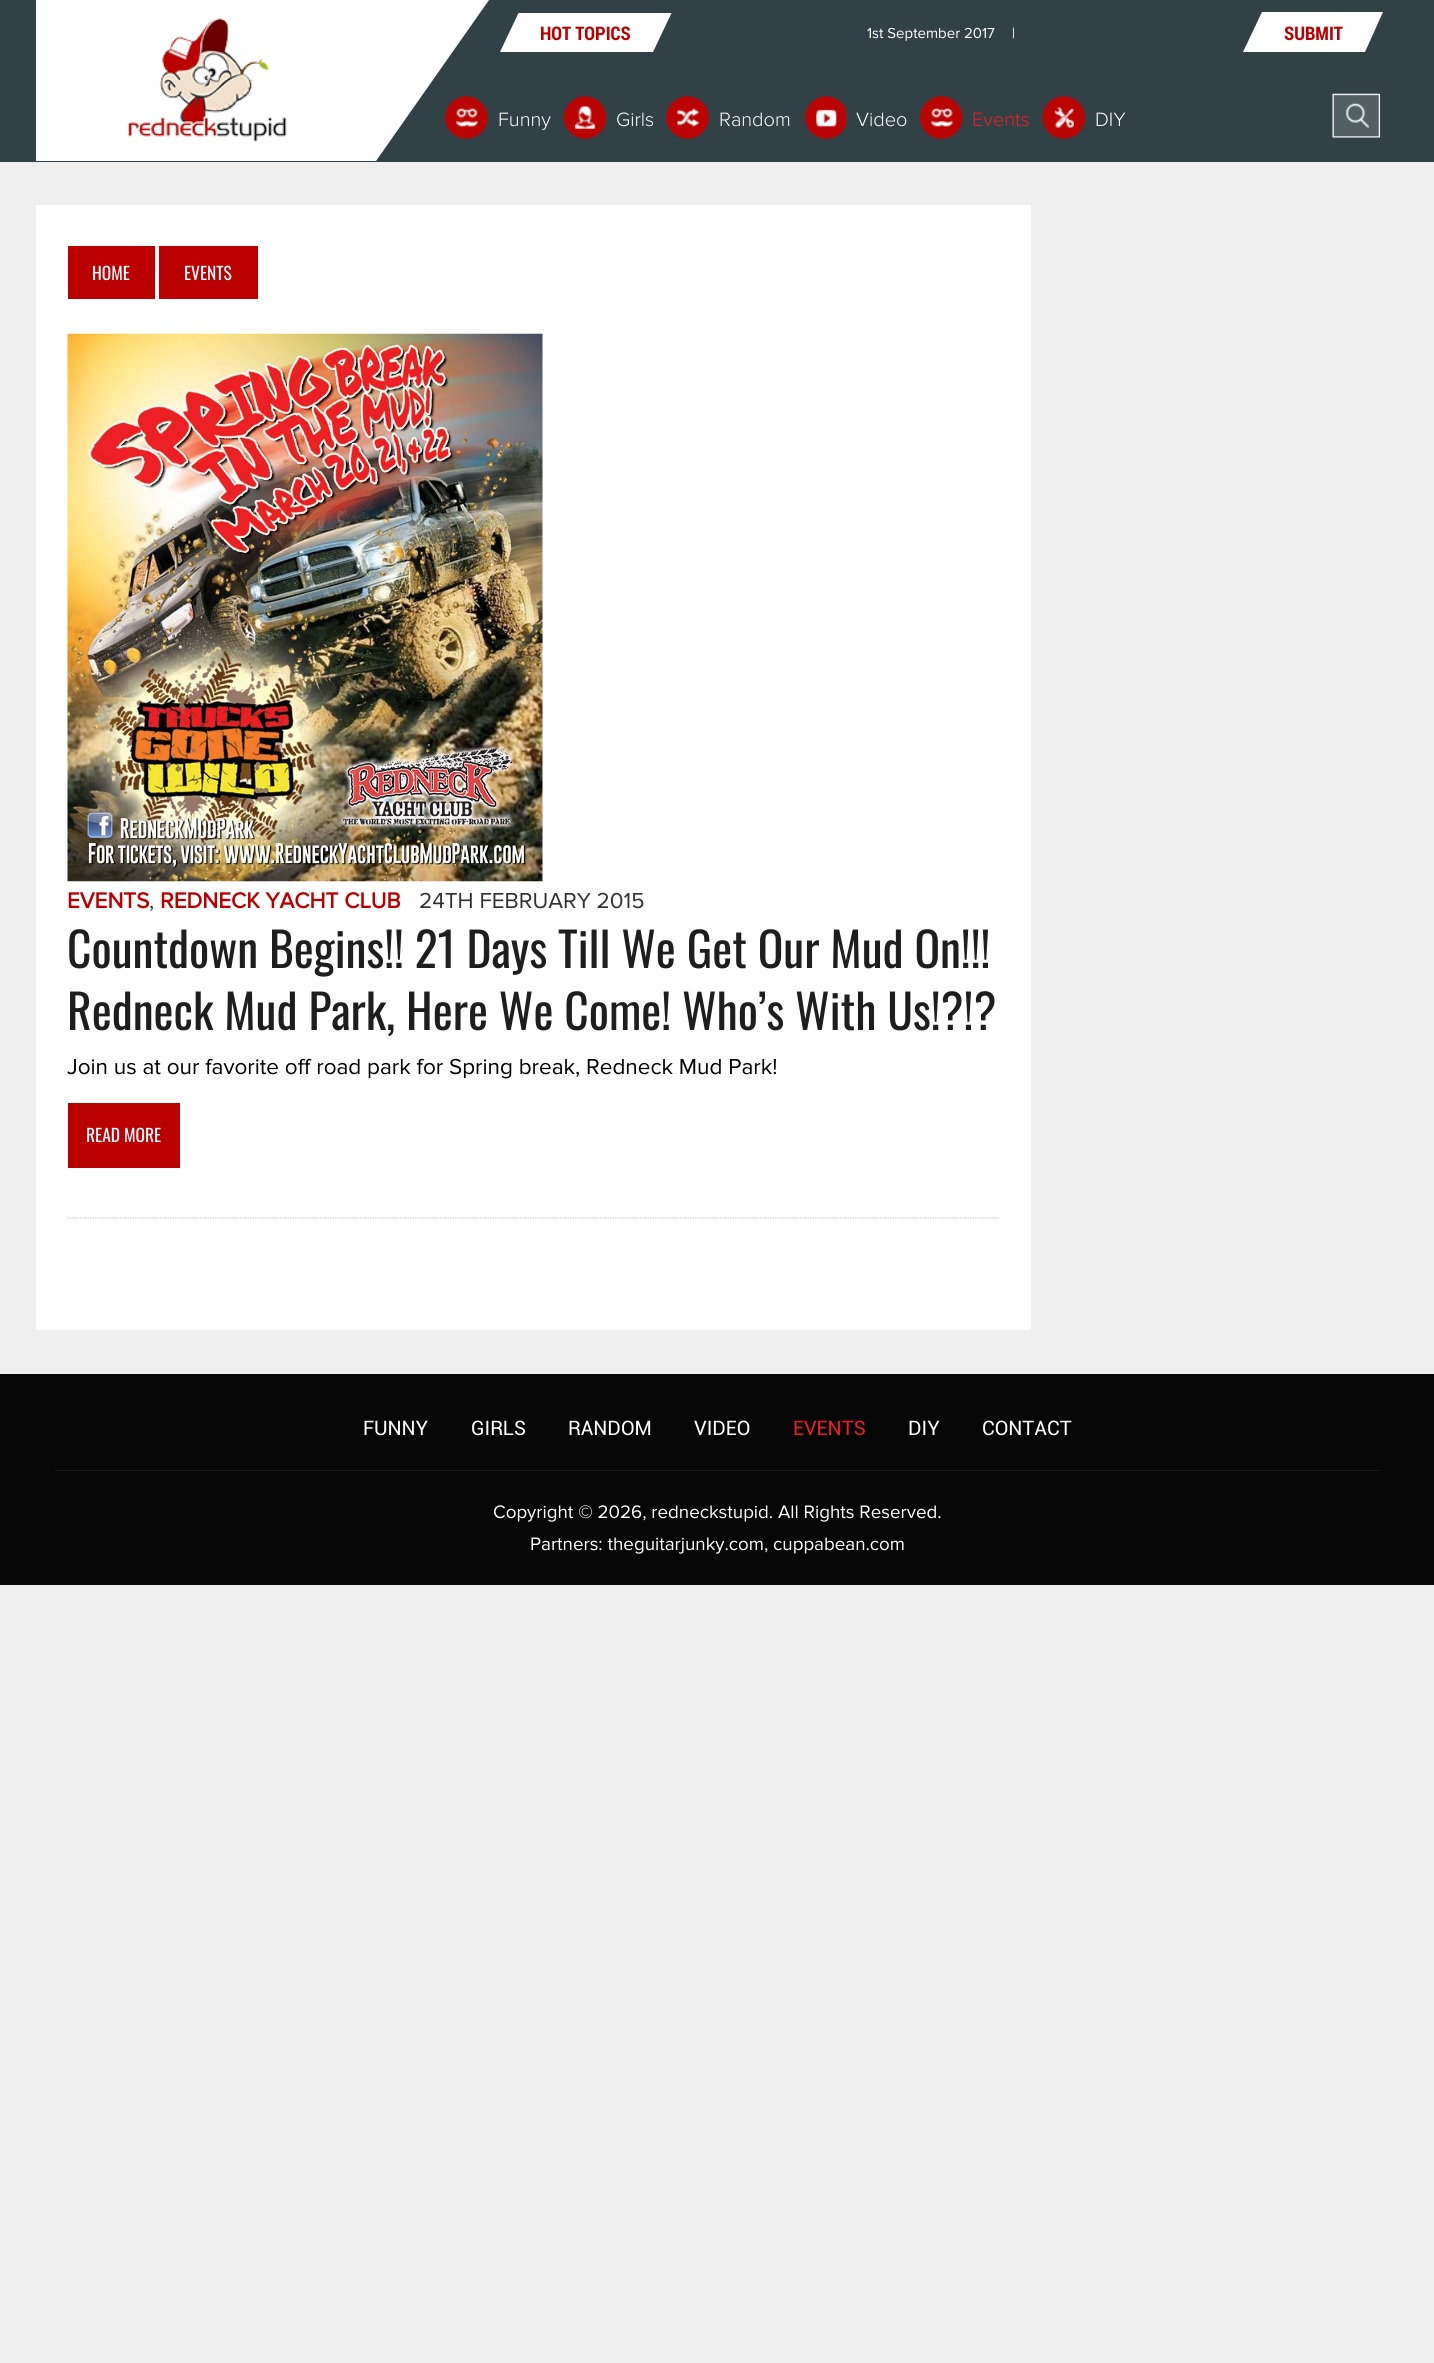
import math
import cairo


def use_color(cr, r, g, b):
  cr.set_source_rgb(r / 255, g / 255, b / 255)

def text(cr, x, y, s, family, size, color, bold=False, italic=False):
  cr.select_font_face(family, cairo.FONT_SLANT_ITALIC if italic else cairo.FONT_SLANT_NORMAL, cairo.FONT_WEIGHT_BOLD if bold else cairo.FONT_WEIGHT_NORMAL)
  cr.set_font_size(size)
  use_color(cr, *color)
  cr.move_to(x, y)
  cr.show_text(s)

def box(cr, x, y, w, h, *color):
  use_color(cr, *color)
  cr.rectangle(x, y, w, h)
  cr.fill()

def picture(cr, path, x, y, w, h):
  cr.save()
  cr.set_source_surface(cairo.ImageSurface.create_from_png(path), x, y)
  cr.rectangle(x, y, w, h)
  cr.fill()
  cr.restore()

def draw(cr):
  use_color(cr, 239, 239, 239)
  cr.paint()
  box(cr, 0, 0, 1434, 162, 49, 66, 70)
  box(cr, 36, 0, 340, 161, 255, 255, 255)
  picture(cr, "img_01.png", 128, 18, 159, 124)
  cr.new_path()
  cr.move_to(376, 0)
  cr.line_to(489, 0)
  cr.line_to(376, 161)
  cr.close_path()
  cr.fill()
  cr.save()
  cr.rectangle(495, 13, 591, 41)
  cr.clip()
  cr.new_path()
  cr.move_to(519, 12)
  cr.line_to(672, 12)
  cr.line_to(653, 52)
  cr.line_to(500, 52)
  cr.close_path()
  cr.fill()
  cr.restore()
  cr.new_path()
  cr.move_to(1262, 12)
  cr.line_to(1383, 12)
  cr.line_to(1365, 52)
  cr.line_to(1243, 52)
  cr.close_path()
  cr.fill()
  picture(cr, "img_02.png", 445, 96, 43, 43)
  picture(cr, "img_03.png", 563, 96, 44, 43)
  picture(cr, "img_04.png", 666, 96, 43, 43)
  picture(cr, "img_05.png", 804, 96, 43, 43)
  picture(cr, "img_06.png", 920, 96, 43, 43)
  picture(cr, "img_07.png", 1042, 96, 43, 43)
  picture(cr, "img_08.png", 1332, 93, 48, 45)
  box(cr, 36, 205, 995, 1125, 255, 255, 255)
  box(cr, 68, 246, 87, 53, 186, 0, 1)
  box(cr, 159, 246, 99, 53, 186, 0, 1)
  picture(cr, "img_09.png", 67, 333, 476, 549)
  box(cr, 68, 1103, 112, 65, 186, 0, 1)
  cr.new_path()
  cr.move_to(67.5, 1218)
  cr.line_to(1000, 1218)
  use_color(cr, 205, 205, 205)
  cr.set_line_width(1.2)
  cr.set_dash([1.25, 1.25])
  cr.stroke()
  box(cr, 0, 1374, 1434, 211, 7, 7, 7)
  box(cr, 55, 1470, 1325, 1, 24, 24, 24)
  text(cr, 540, 40, "HOT TOPICS", "Roboto Condensed", 18.75, (186, 0, 1), bold=True)
  text(cr, 867, 38, "1st September 2017", "Proxima Nova", 15, (255, 255, 255))
  text(cr, 1012, 38, "|", "Proxima Nova", 15, (255, 255, 255))
  text(cr, 1284, 40, "SUBMIT", "Roboto Condensed", 18.75, (186, 0, 1), bold=True)
  text(cr, 498, 126, "Funny", "Proxima Nova Light", 20, (255, 255, 255))
  text(cr, 616, 126, "Girls", "Proxima Nova Light", 20, (255, 255, 255))
  text(cr, 719, 126, "Random", "Proxima Nova Light", 20, (255, 255, 255))
  text(cr, 856, 126, "Video", "Proxima Nova Light", 20, (255, 255, 255))
  text(cr, 972, 126, "Events", "Proxima Nova Light", 20, (238, 29, 36))
  text(cr, 1095, 126, "DIY", "Proxima Nova Light", 20, (255, 255, 255))
  text(cr, 92, 280, "HOME", "Oswald", 17.5, (255, 255, 255))
  text(cr, 184, 280, "EVENTS", "Oswald", 17.5, (255, 255, 255))
  text(cr, 67, 908, "EVENTS", "Proxima Nova", 22.5, (186, 0, 1), bold=True)
  text(cr, 149, 908, ",", "Proxima Nova", 22.5, (49, 49, 49))
  text(cr, 160, 908, "REDNECK YACHT CLUB", "Proxima Nova", 22.5, (186, 0, 1), bold=True)
  text(cr, 419, 908, "24TH FEBRUARY 2015", "Proxima Nova", 22.5, (49, 49, 49))
  text(cr, 67, 968, "Countdown Begins!! 21 Days Till We Get Our Mud On!!!", "Oswald", 47.5, (31, 30, 30))
  text(cr, 67, 1030, "Redneck Mud Park, Here We Come! Who’s With Us!?!?", "Oswald", 47.5, (31, 30, 30))
  text(cr, 67, 1074, "Join us at our favorite off road park for Spring break, Redneck Mud Park!", "Proxima Nova", 22.5, (0, 0, 0))
  text(cr, 86, 1142, "READ MORE", "Oswald", 17.5, (255, 255, 255))
  text(cr, 363, 1435, "FUNNY", "Roboto", 20, (255, 255, 255))
  text(cr, 471, 1435, "GIRLS", "Roboto", 20, (255, 255, 255))
  text(cr, 568, 1435, "RANDOM", "Roboto", 20, (255, 255, 255))
  text(cr, 694, 1435, "VIDEO", "Roboto", 20, (255, 255, 255))
  text(cr, 793, 1435, "EVENTS", "Roboto", 20, (238, 29, 36))
  text(cr, 908, 1435, "DIY", "Roboto", 20, (255, 255, 255))
  text(cr, 982, 1435, "CONTACT", "Roboto", 20, (255, 255, 255))
  text(cr, 493, 1518, "Copyright © 2026, redneckstupid. All Rights Reserved.", "Proxima Nova", 18.75, (255, 255, 255))
  text(cr, 530, 1550, "Partners: theguitarjunky.com, cuppabean.com", "Proxima Nova", 18.75, (255, 255, 255))


surface = cairo.ImageSurface(cairo.FORMAT_RGB24, 1434, 2363)
cr = cairo.Context(surface)
options = cairo.FontOptions()
options.set_hint_metrics(cairo.HINT_METRICS_OFF)
options.set_hint_style(cairo.HINT_STYLE_NONE)
cr.set_font_options(options)
cr.set_miter_limit(4)
draw(cr)
surface.write_to_png("out.png")
